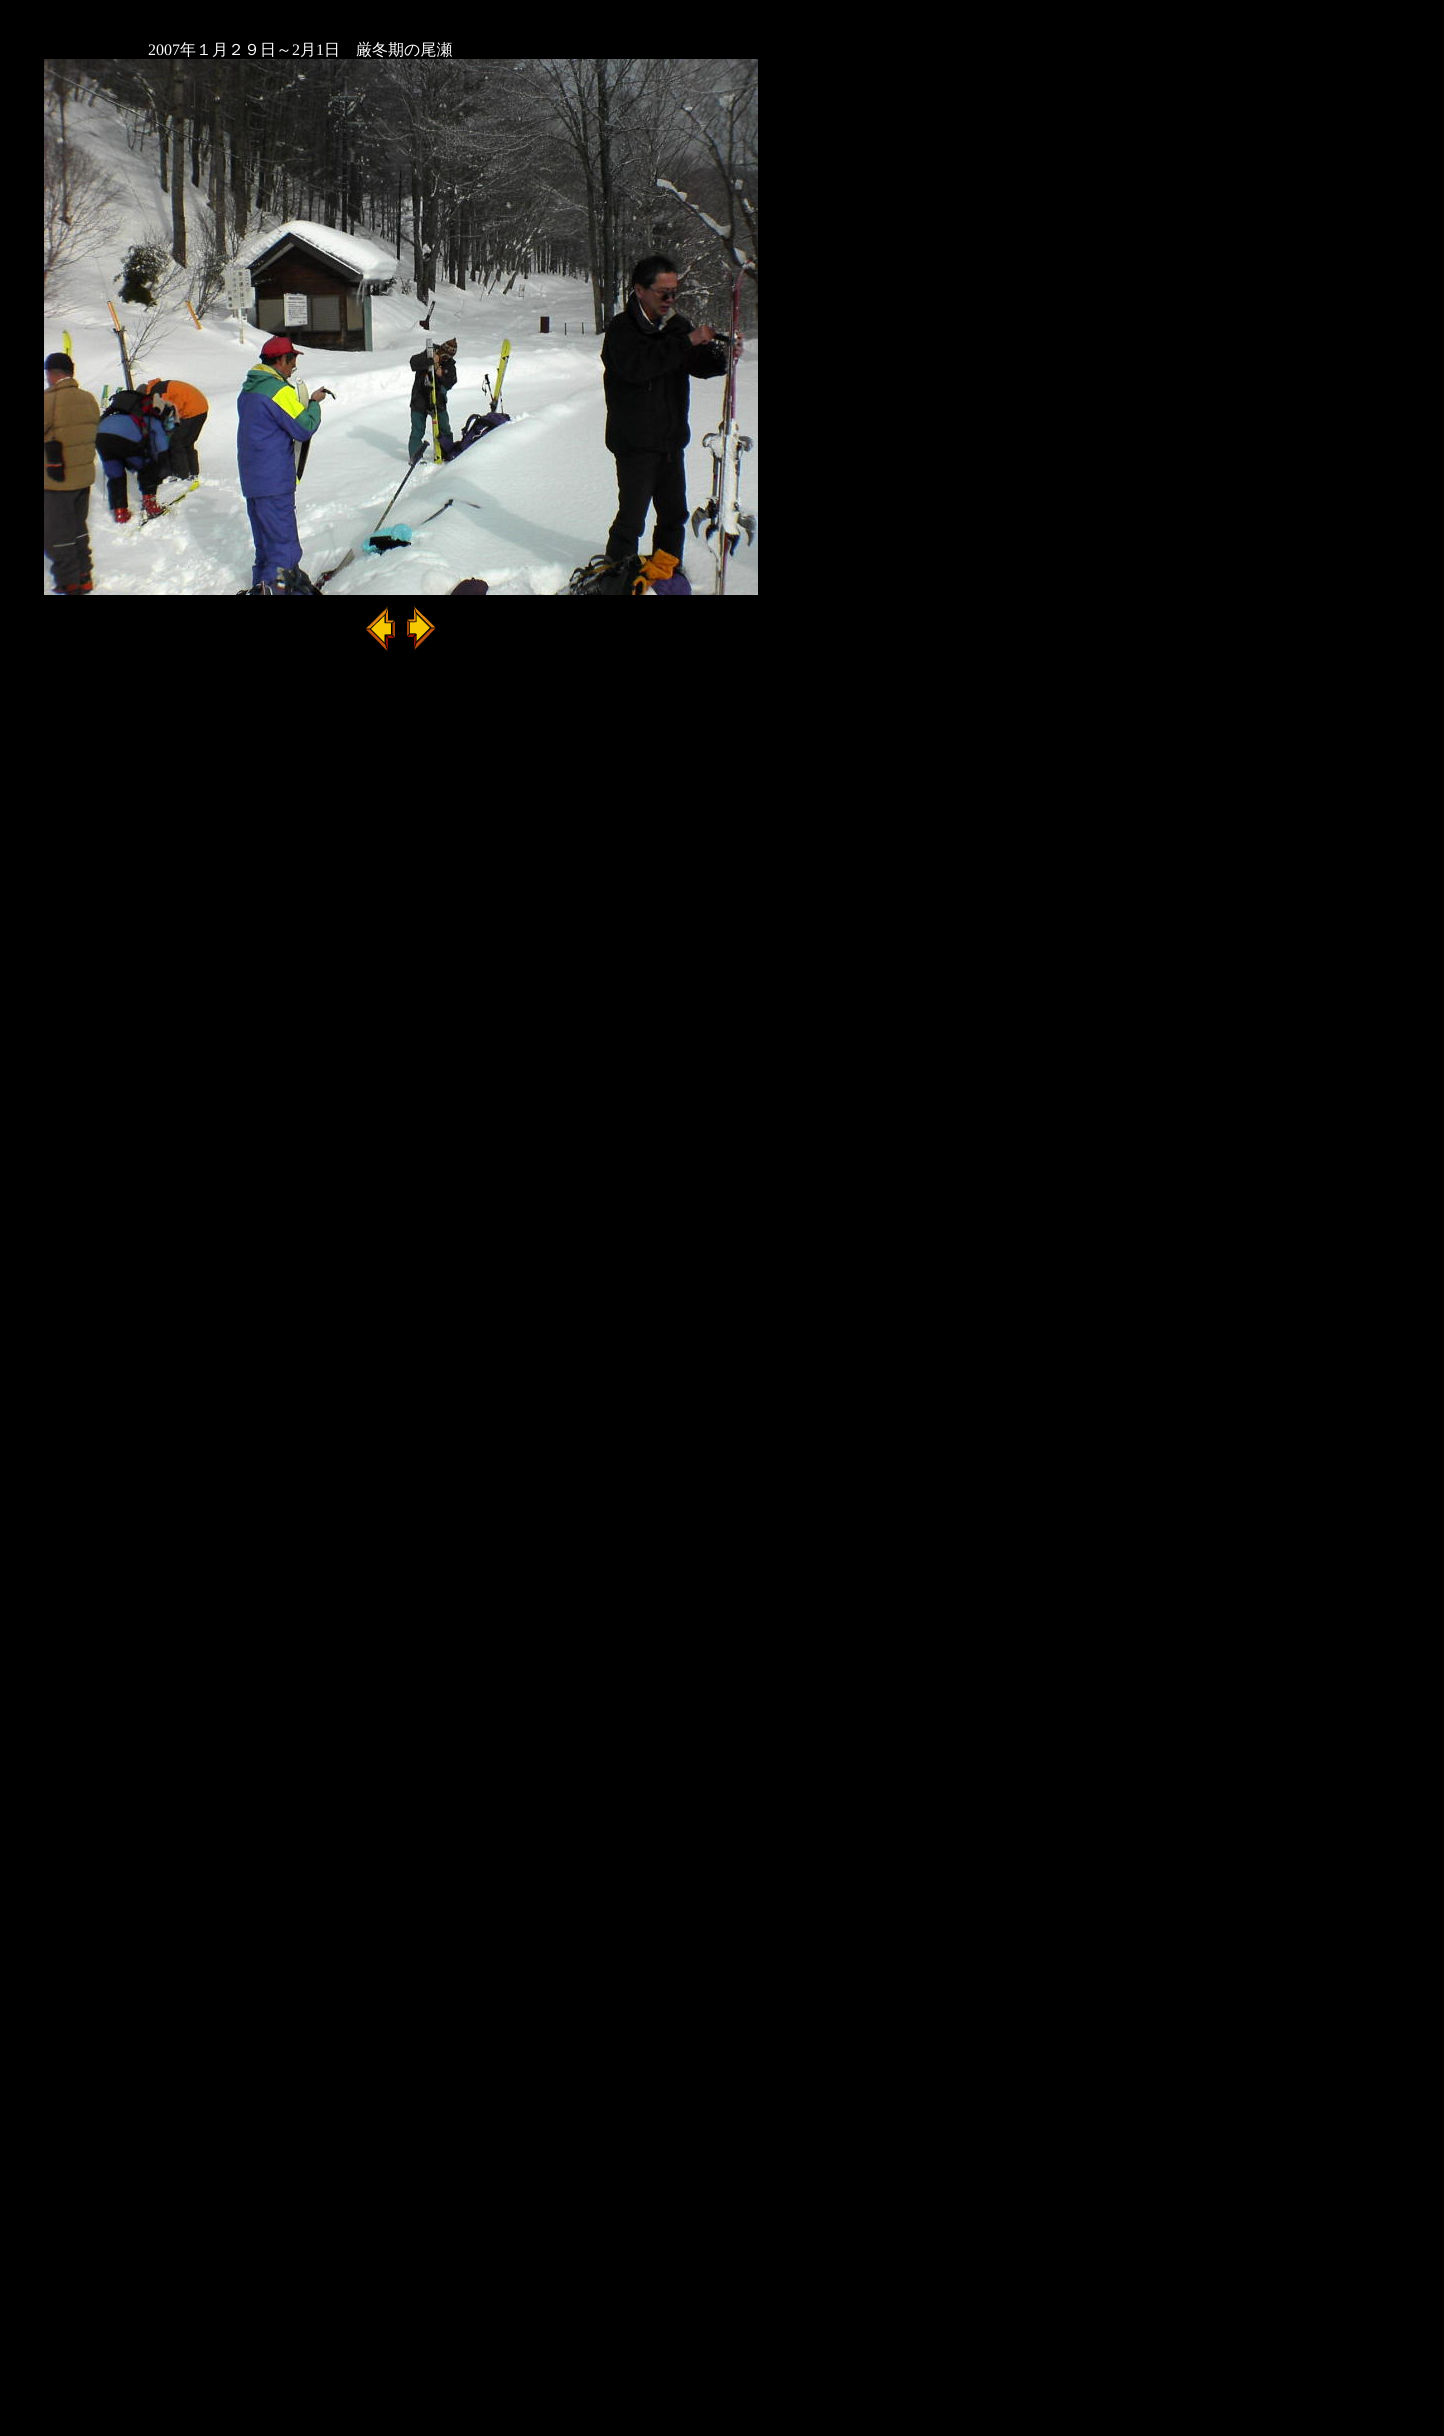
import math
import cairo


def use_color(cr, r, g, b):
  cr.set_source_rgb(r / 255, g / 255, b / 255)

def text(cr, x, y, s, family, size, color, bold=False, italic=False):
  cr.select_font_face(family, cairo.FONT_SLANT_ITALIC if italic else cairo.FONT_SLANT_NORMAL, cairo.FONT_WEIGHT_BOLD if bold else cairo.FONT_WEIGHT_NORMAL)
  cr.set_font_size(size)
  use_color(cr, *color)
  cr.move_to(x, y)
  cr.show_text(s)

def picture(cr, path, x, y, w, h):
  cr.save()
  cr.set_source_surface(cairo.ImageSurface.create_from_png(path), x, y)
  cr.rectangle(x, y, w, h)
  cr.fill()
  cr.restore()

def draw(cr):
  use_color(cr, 0, 0, 0)
  cr.paint()
  picture(cr, "img_01.png", 44, 59, 714, 536)
  picture(cr, "img_02.png", 365, 606, 30, 46)
  picture(cr, "img_03.png", 407, 606, 29, 45)
  text(cr, 148, 55, "2007", "Liberation Serif", 16, (255, 255, 255))
  text(cr, 180, 55, "年１月２９日～", "WenQuanYi Zen Hei Medium", 16, (255, 255, 255))
  text(cr, 292, 55, "2", "Liberation Serif", 16, (255, 255, 255))
  text(cr, 300, 55, "月", "WenQuanYi Zen Hei Medium", 16, (255, 255, 255))
  text(cr, 316, 55, "1", "Liberation Serif", 16, (255, 255, 255))
  text(cr, 324, 55, "日　厳冬期の尾瀬", "WenQuanYi Zen Hei Medium", 16, (255, 255, 255))


surface = cairo.ImageSurface(cairo.FORMAT_RGB24, 1444, 2436)
cr = cairo.Context(surface)
options = cairo.FontOptions()
options.set_hint_metrics(cairo.HINT_METRICS_OFF)
options.set_hint_style(cairo.HINT_STYLE_NONE)
cr.set_font_options(options)
cr.set_miter_limit(4)
draw(cr)
surface.write_to_png("out.png")
